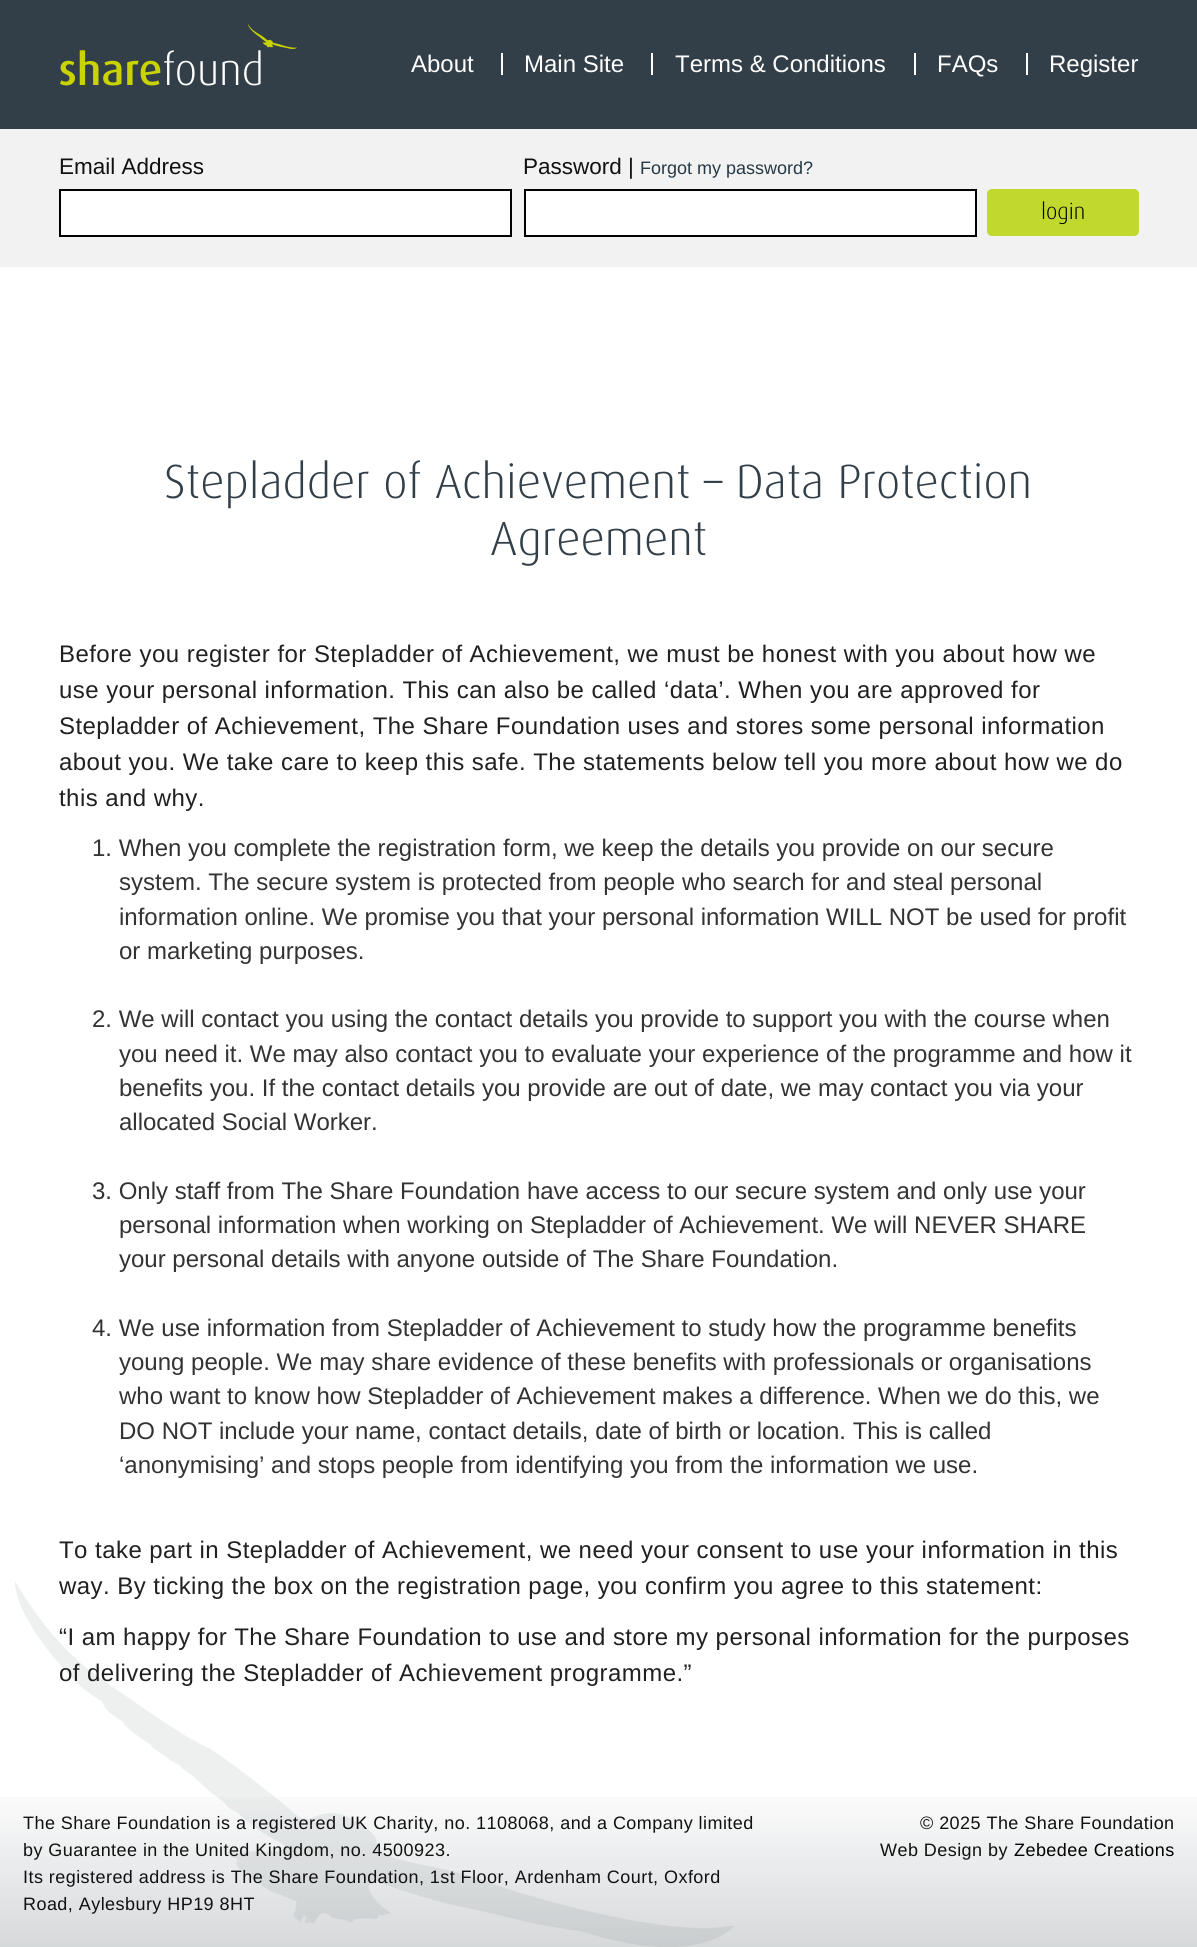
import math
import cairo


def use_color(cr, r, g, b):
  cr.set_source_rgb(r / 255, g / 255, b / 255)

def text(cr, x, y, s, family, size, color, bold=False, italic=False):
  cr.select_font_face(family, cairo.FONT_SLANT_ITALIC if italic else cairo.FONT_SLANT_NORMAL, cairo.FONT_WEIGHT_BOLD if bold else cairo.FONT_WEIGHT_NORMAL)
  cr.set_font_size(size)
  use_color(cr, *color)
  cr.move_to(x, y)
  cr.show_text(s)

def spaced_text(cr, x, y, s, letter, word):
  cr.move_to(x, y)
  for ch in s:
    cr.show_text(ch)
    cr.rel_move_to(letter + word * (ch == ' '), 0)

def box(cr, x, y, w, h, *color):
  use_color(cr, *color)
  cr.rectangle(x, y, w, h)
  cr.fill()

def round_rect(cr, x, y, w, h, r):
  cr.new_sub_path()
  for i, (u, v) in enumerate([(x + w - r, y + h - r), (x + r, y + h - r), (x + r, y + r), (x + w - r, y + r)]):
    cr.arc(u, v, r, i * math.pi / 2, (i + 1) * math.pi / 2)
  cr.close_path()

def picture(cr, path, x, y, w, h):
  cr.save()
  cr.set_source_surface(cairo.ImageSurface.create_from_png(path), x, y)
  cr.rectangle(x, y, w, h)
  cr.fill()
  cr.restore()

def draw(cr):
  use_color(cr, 255, 255, 255)
  cr.paint()
  picture(cr, "img_01.png", 15, 1581, 719, 366)
  box(cr, 0, 0, 1197, 129, 51, 63, 72)
  picture(cr, "img_02.png", 60, 24, 237, 62)
  box(cr, 501, 53, 2, 22, 255, 255, 255)
  box(cr, 651, 53, 2, 22, 255, 255, 255)
  box(cr, 914, 53, 2, 22, 255, 255, 255)
  box(cr, 1026, 53, 2, 22, 255, 255, 255)
  box(cr, 0, 129, 1197, 138, 242, 242, 242)
  use_color(cr, 255, 255, 255)
  cr.rectangle(60, 190, 451, 46)
  cr.fill_preserve()
  use_color(cr, 0, 0, 0)
  cr.stroke()
  use_color(cr, 255, 255, 255)
  cr.rectangle(525, 190, 451, 46)
  cr.fill_preserve()
  use_color(cr, 0, 0, 0)
  cr.stroke()
  use_color(cr, 193, 216, 47)
  round_rect(cr, 987, 189, 152, 47, 5)
  cr.fill()
  gradient = cairo.LinearGradient(599, 1779, 599, 1947)
  gradient.add_color_stop_rgba(0, 0.2, 0.247, 0.282, 0)
  gradient.add_color_stop_rgba(1, 0.2, 0.247, 0.282, 0.2)
  cr.set_source(gradient)
  cr.rectangle(0, 1797, 1197, 150)
  cr.fill()
  text(cr, 411, 72, "About", "Liberation Sans", 24, (255, 255, 255))
  text(cr, 524, 72, "Main Site", "Liberation Sans", 24, (255, 255, 255))
  text(cr, 675, 72, "Terms & Conditions", "Liberation Sans", 24, (255, 255, 255))
  text(cr, 937, 72, "FAQs", "Liberation Sans", 24, (255, 255, 255))
  text(cr, 1049, 72, "Register", "Liberation Sans", 24, (255, 255, 255))
  text(cr, 59, 174, "Email Address", "Liberation Sans", 22.5, (17, 17, 17))
  text(cr, 523, 174, "Password |", "Liberation Sans", 22.5, (17, 17, 17))
  text(cr, 640, 174, "Forgot my password?", "Liberation Sans", 18, (38, 57, 68))
  text(cr, 1041, 219, "login", "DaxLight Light", 22.5, (0, 0, 0))
  text(cr, 164, 498, "Stepladder of Achievement – Data Protection", "DaxLight Light", 48, (51, 63, 72))
  text(cr, 490, 555, "Agreement", "DaxLight Light", 48, (51, 63, 72))
  cr.select_font_face("Liberation Sans")
  cr.set_font_size(24)
  use_color(cr, 32, 32, 32)
  spaced_text(cr, 59, 662, "Before you register for Stepladder of Achievement, we must be honest with you about how we", 0.45, 0)
  spaced_text(cr, 59, 698, "use your personal information. This can also be called ‘data’. When you are approved for", 0.45, 0)
  spaced_text(cr, 59, 734, "Stepladder of Achievement, The Share Foundation uses and stores some personal information", 0.45, 0)
  spaced_text(cr, 59, 770, "about you. We take care to keep this safe. The statements below tell you more about how we do", 0.45, 0)
  spaced_text(cr, 59, 806, "this and why.", 0.45, 0)
  text(cr, 92, 856, "1. When you complete the registration form, we keep the details you provide on our secure", "Liberation Sans", 24, (51, 51, 51))
  text(cr, 119, 890, "system. The secure system is protected from people who search for and steal personal", "Liberation Sans", 24, (51, 51, 51))
  text(cr, 119, 925, "information online. We promise you that your personal information WILL NOT be used for profit", "Liberation Sans", 24, (51, 51, 51))
  text(cr, 119, 959, "or marketing purposes.", "Liberation Sans", 24, (51, 51, 51))
  text(cr, 92, 1027, "2. We will contact you using the contact details you provide to support you with the course when", "Liberation Sans", 24, (51, 51, 51))
  text(cr, 119, 1062, "you need it. We may also contact you to evaluate your experience of the programme and how it", "Liberation Sans", 24, (51, 51, 51))
  text(cr, 119, 1096, "benefits you. If the contact details you provide are out of date, we may contact you via your", "Liberation Sans", 24, (51, 51, 51))
  text(cr, 119, 1130, "allocated Social Worker.", "Liberation Sans", 24, (51, 51, 51))
  text(cr, 92, 1199, "3. Only staff from The Share Foundation have access to our secure system and only use your", "Liberation Sans", 24, (51, 51, 51))
  text(cr, 119, 1233, "personal information when working on Stepladder of Achievement. We will NEVER SHARE", "Liberation Sans", 24, (51, 51, 51))
  text(cr, 119, 1267, "your personal details with anyone outside of The Share Foundation.", "Liberation Sans", 24, (51, 51, 51))
  text(cr, 92, 1336, "4. We use information from Stepladder of Achievement to study how the programme benefits", "Liberation Sans", 24, (51, 51, 51))
  text(cr, 119, 1370, "young people. We may share evidence of these benefits with professionals or organisations", "Liberation Sans", 24, (51, 51, 51))
  text(cr, 119, 1404, "who want to know how Stepladder of Achievement makes a difference. When we do this, we", "Liberation Sans", 24, (51, 51, 51))
  text(cr, 119, 1439, "DO NOT include your name, contact details, date of birth or location. This is called", "Liberation Sans", 24, (51, 51, 51))
  text(cr, 119, 1473, "‘anonymising’ and stops people from identifying you from the information we use.", "Liberation Sans", 24, (51, 51, 51))
  use_color(cr, 32, 32, 32)
  spaced_text(cr, 59, 1558, "To take part in Stepladder of Achievement, we need your consent to use your information in this", 0.45, 0)
  spaced_text(cr, 59, 1594, "way. By ticking the box on the registration page, you confirm you agree to this statement:", 0.45, 0)
  spaced_text(cr, 59, 1645, "“I am happy for The Share Foundation to use and store my personal information for the purposes", 0.45, 0)
  spaced_text(cr, 59, 1681, "of delivering the Stepladder of Achievement programme.”", 0.45, 0)
  cr.set_font_size(18)
  use_color(cr, 17, 17, 17)
  spaced_text(cr, 23, 1829, "The Share Foundation is a registered UK Charity, no. 1108068, and a Company limited", 0.45, 0)
  spaced_text(cr, 23, 1856, "by Guarantee in the United Kingdom, no. 4500923.", 0.45, 0)
  spaced_text(cr, 23, 1883, "Its registered address is The Share Foundation, 1st Floor, Ardenham Court, Oxford", 0.45, 0)
  spaced_text(cr, 23, 1910, "Road, Aylesbury HP19 8HT", 0.45, 0)
  spaced_text(cr, 920, 1829, "© 2025 The Share Foundation", 0.45, 0)
  spaced_text(cr, 880, 1856, "Web Design by", 0.45, 0)
  use_color(cr, 0, 0, 0)
  spaced_text(cr, 1014, 1856, "Zebedee Creations", 0.45, 0)


surface = cairo.ImageSurface(cairo.FORMAT_RGB24, 1197, 1947)
cr = cairo.Context(surface)
options = cairo.FontOptions()
options.set_hint_metrics(cairo.HINT_METRICS_OFF)
options.set_hint_style(cairo.HINT_STYLE_NONE)
cr.set_font_options(options)
cr.set_miter_limit(4)
draw(cr)
surface.write_to_png("out.png")
